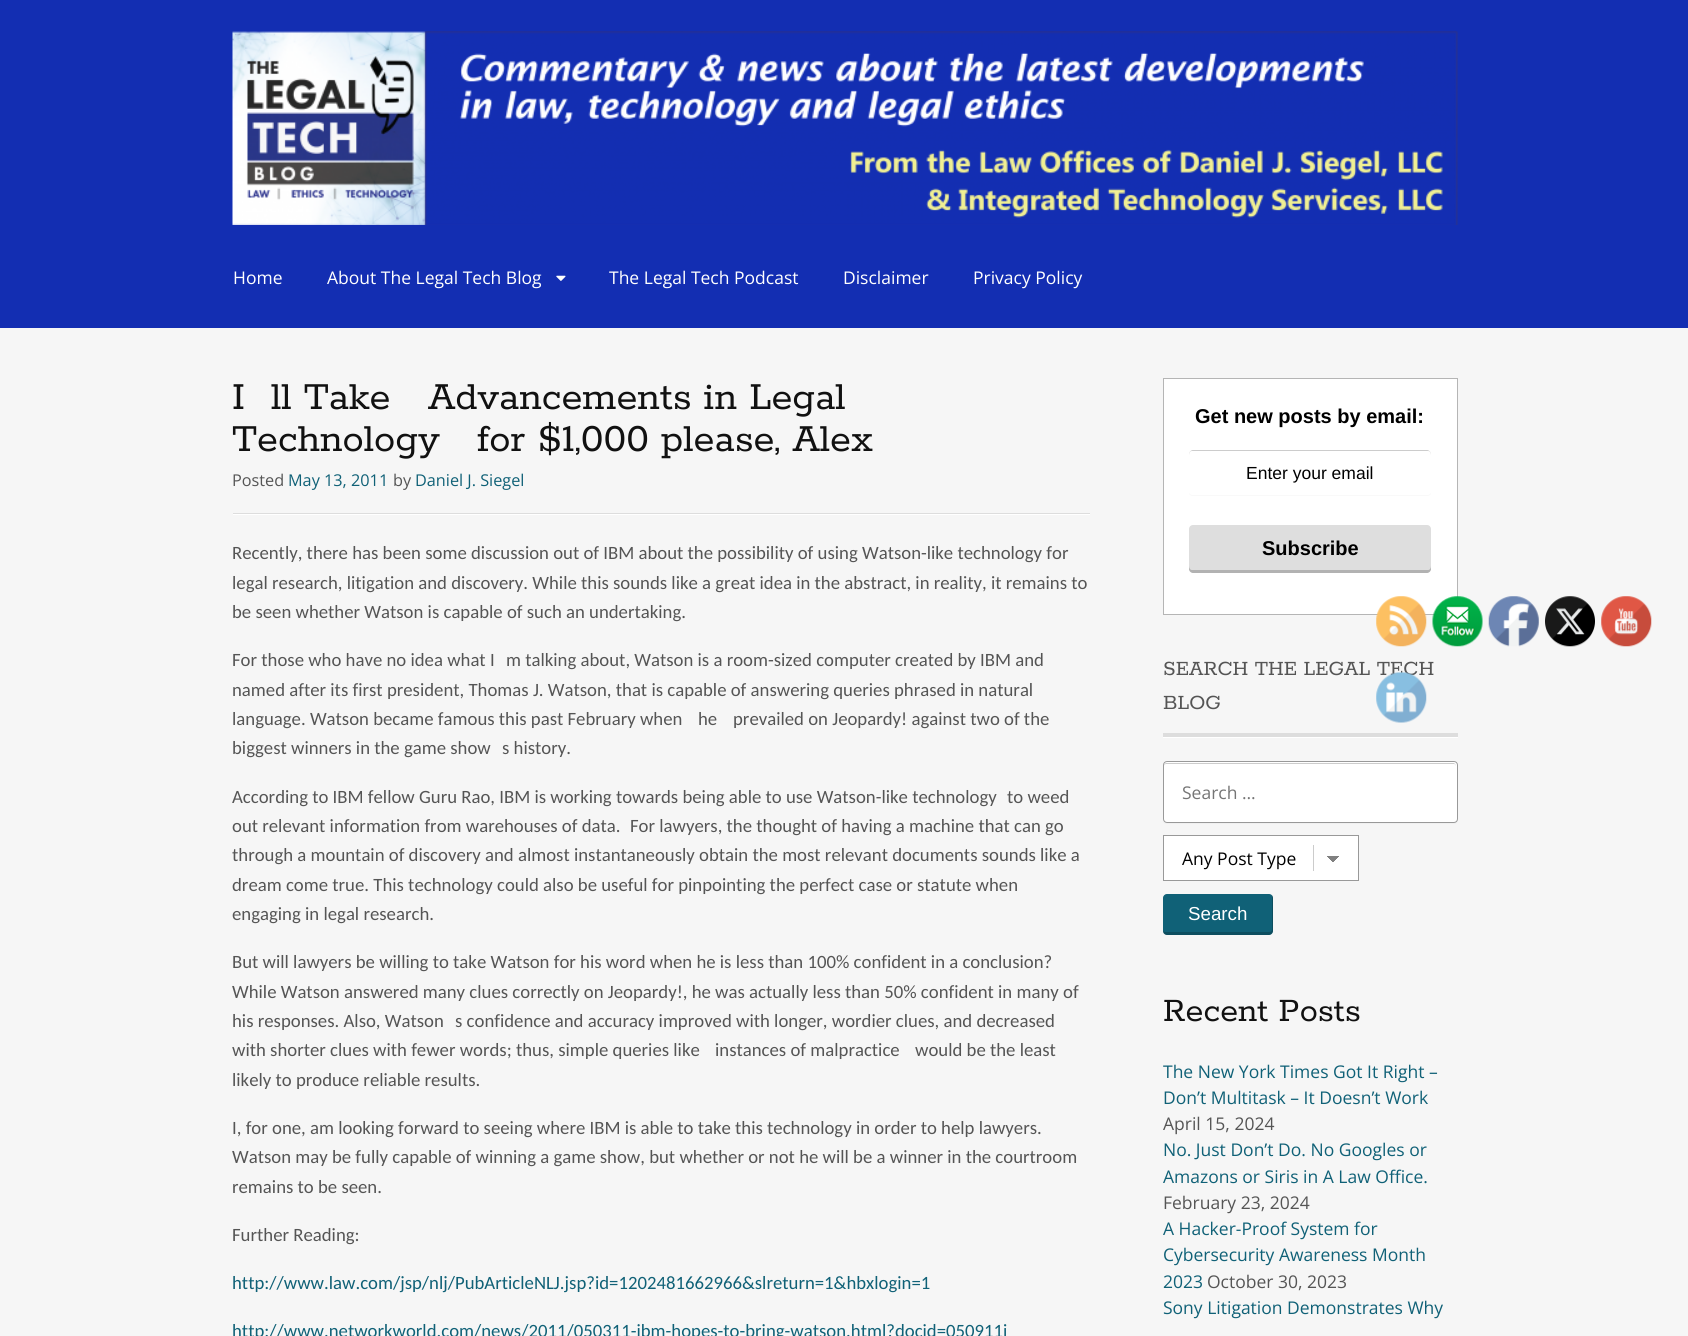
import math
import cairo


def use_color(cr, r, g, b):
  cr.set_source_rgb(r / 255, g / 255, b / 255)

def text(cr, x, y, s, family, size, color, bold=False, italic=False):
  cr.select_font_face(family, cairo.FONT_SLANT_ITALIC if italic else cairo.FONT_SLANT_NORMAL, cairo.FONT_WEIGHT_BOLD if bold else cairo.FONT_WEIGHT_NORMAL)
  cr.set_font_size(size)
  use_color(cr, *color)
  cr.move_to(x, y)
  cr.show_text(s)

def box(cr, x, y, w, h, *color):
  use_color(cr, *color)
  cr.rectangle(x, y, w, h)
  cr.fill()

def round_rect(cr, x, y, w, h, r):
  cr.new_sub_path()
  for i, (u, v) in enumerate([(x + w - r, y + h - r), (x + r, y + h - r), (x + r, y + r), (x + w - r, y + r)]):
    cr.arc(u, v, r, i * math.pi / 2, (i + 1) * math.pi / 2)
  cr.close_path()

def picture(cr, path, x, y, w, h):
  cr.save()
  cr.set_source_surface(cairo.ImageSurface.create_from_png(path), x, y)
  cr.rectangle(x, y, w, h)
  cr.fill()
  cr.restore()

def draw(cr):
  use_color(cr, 246, 246, 246)
  cr.paint()
  box(cr, 0, 0, 1688, 328, 19, 46, 178)
  picture(cr, "img_01.png", 232, 31, 1226, 194)
  picture(cr, "img_02.png", 556, 275, 10, 6)
  box(cr, 233, 514, 857, 1, 255, 255, 255)
  box(cr, 233, 513, 857, 1, 221, 221, 221)
  use_color(cr, 255, 255, 255)
  cr.rectangle(1163.5, 378.5, 294, 236)
  cr.fill_preserve()
  use_color(cr, 181, 181, 181)
  cr.set_line_width(1)
  cr.stroke()
  use_color(cr, 249, 249, 249)
  cr.new_path()
  cr.move_to(1189, 493)
  cr.curve_to(1189, 495, 1191, 496, 1193, 496)
  cr.line_to(1427, 496)
  cr.curve_to(1429, 496, 1431, 495, 1431, 493)
  cr.curve_to(1430, 494, 1429, 495, 1428, 495)
  cr.line_to(1192, 495)
  cr.curve_to(1191, 495, 1190, 494, 1189, 493)
  cr.close_path()
  cr.fill()
  use_color(cr, 204, 204, 204)
  cr.new_path()
  cr.move_to(1192, 451)
  cr.line_to(1428, 451)
  cr.curve_to(1430, 451, 1431, 453, 1431, 455)
  cr.line_to(1431, 454)
  cr.curve_to(1431, 452, 1429, 450, 1427, 450)
  cr.line_to(1193, 450)
  cr.curve_to(1191, 450, 1189, 452, 1189, 454)
  cr.line_to(1189, 455)
  cr.curve_to(1189, 453, 1190, 451, 1192, 451)
  cr.close_path()
  cr.fill()
  use_color(cr, 222, 222, 222)
  round_rect(cr, 1189, 525, 242, 48, 4)
  cr.fill()
  cr.set_source_rgba(0, 0, 0, 0.2)
  cr.new_path()
  cr.move_to(1189, 566)
  cr.line_to(1189, 569)
  cr.curve_to(1189, 571, 1191, 573, 1193, 573)
  cr.line_to(1427, 573)
  cr.curve_to(1429, 573, 1431, 571, 1431, 569)
  cr.line_to(1431, 566)
  cr.curve_to(1431, 568, 1430, 570, 1428, 570)
  cr.line_to(1192, 570)
  cr.curve_to(1190, 570, 1189, 568, 1189, 566)
  cr.close_path()
  cr.fill()
  use_color(cr, 255, 255, 255)
  cr.new_path()
  cr.move_to(1163, 736)
  cr.line_to(1163, 738)
  cr.line_to(1458, 738)
  cr.line_to(1458, 654)
  cr.line_to(1458, 736)
  cr.close_path()
  cr.fill()
  box(cr, 1163, 733, 295, 4, 221, 221, 221)
  use_color(cr, 240, 240, 240)
  cr.new_path()
  cr.move_to(1163, 821)
  cr.curve_to(1163, 823, 1165, 824, 1167, 824)
  cr.line_to(1454, 824)
  cr.curve_to(1456, 824, 1458, 822, 1458, 820)
  cr.line_to(1458, 767)
  cr.line_to(1458, 765)
  cr.line_to(1458, 819)
  cr.curve_to(1458, 821, 1456, 822, 1454, 822)
  cr.line_to(1166, 822)
  cr.curve_to(1165, 822, 1164, 822, 1163, 821)
  cr.close_path()
  cr.fill()
  use_color(cr, 255, 255, 255)
  round_rect(cr, 1163, 761, 295, 62, 4)
  cr.fill()
  use_color(cr, 204, 204, 204)
  cr.new_path()
  cr.move_to(1166, 764)
  cr.line_to(1454, 764)
  cr.curve_to(1455, 764, 1456, 765, 1456, 766)
  cr.line_to(1456, 765)
  cr.line_to(1454, 763)
  cr.line_to(1166, 763)
  cr.curve_to(1164, 764, 1164, 765, 1164, 766)
  cr.curve_to(1164, 765, 1165, 764, 1166, 764)
  cr.close_path()
  cr.fill()
  round_rect(cr, 1163.5, 761.5, 294, 61, 3.5)
  use_color(cr, 153, 153, 153)
  cr.stroke()
  box(cr, 1164, 836, 194, 44, 255, 255, 255)
  box(cr, 1313, 845, 1, 26, 204, 204, 204)
  gradient = cairo.LinearGradient(1333, 856, 1339, 863)
  gradient.add_color_stop_rgba(0.5, 0.502, 0.502, 0.502, 1)
  gradient.add_color_stop_rgba(0.5, 1, 1, 1, 1)
  cr.set_source(gradient)
  cr.rectangle(1333, 856, 6, 7)
  cr.fill()
  gradient = cairo.LinearGradient(1326, 863, 1333, 856)
  gradient.add_color_stop_rgba(0.5, 1, 1, 1, 1)
  gradient.add_color_stop_rgba(0.5, 0.502, 0.502, 0.502, 1)
  cr.set_source(gradient)
  cr.rectangle(1326, 856, 7, 6)
  cr.fill()
  cr.rectangle(1163.5, 835.5, 195, 45)
  use_color(cr, 153, 153, 153)
  cr.stroke()
  use_color(cr, 16, 97, 119)
  round_rect(cr, 1163, 894, 110, 41, 4)
  cr.fill()
  cr.set_source_rgba(0, 0, 0, 0.2)
  cr.new_path()
  cr.move_to(1163, 931)
  cr.curve_to(1163, 933, 1165, 935, 1167, 935)
  cr.line_to(1269, 935)
  cr.curve_to(1271, 935, 1273, 933, 1273, 931)
  cr.line_to(1273, 898)
  cr.curve_to(1273, 897, 1273, 896, 1272, 895)
  cr.line_to(1272, 929)
  cr.curve_to(1272, 931, 1271, 932, 1269, 932)
  cr.line_to(1166, 932)
  cr.curve_to(1165, 932, 1164, 932, 1163, 931)
  cr.close_path()
  cr.fill()
  picture(cr, "img_03.png", 1376, 596, 51, 51)
  picture(cr, "img_04.png", 1432, 596, 51, 51)
  picture(cr, "img_05.png", 1488, 596, 51, 51)
  picture(cr, "img_06.png", 1545, 596, 50, 51)
  picture(cr, "img_07.png", 1601, 596, 51, 51)
  text(cr, 233, 284, "Home", "Open Sans", 17.5, (255, 255, 255))
  text(cr, 327, 284, "About The Legal Tech Blog", "Open Sans", 17.5, (255, 255, 255))
  text(cr, 609, 284, "The Legal Tech Podcast", "Open Sans", 17.5, (255, 255, 255))
  text(cr, 843, 284, "Disclaimer", "Open Sans", 17.5, (255, 255, 255))
  text(cr, 973, 284, "Privacy Policy", "Open Sans", 17.5, (255, 255, 255))
  text(cr, 232, 409, "I", "Rokkitt", 42.5, (17, 17, 17))
  text(cr, 271, 409, "ll Take", "Rokkitt", 42.5, (17, 17, 17))
  text(cr, 428, 409, "Advancements in Legal", "Rokkitt", 42.5, (17, 17, 17))
  text(cr, 232, 451, "Technology", "Rokkitt", 42.5, (17, 17, 17))
  text(cr, 477, 451, "for $1,000 please, Alex", "Rokkitt", 42.5, (17, 17, 17))
  text(cr, 232, 486, "Posted", "Open Sans", 16.25, (85, 85, 85))
  text(cr, 288, 486, "May 13, 2011", "Open Sans", 16.25, (16, 97, 119))
  text(cr, 393, 486, "by", "Open Sans", 16.25, (85, 85, 85))
  text(cr, 415, 486, "Daniel J. Siegel", "Open Sans", 16.25, (16, 97, 119))
  text(cr, 232, 559, "Recently, there has been some discussion out of IBM about the possibility of using Watson-like technology for", "Carlito", 18.75, (85, 85, 85))
  text(cr, 232, 589, "legal research, litigation and discovery. While this sounds like a great idea in the abstract, in reality, it remains to", "Carlito", 18.75, (85, 85, 85))
  text(cr, 232, 618, "be seen whether Watson is capable of such an undertaking.", "Carlito", 18.75, (85, 85, 85))
  text(cr, 232, 666, "For those who have no idea what I", "Carlito", 18.75, (85, 85, 85))
  text(cr, 506, 666, "m talking about, Watson is a room-sized computer created by IBM and", "Carlito", 18.75, (85, 85, 85))
  text(cr, 232, 696, "named after its first president, Thomas J. Watson, that is capable of answering queries phrased in natural", "Carlito", 18.75, (85, 85, 85))
  text(cr, 232, 725, "language. Watson became famous this past February when", "Carlito", 18.75, (85, 85, 85))
  text(cr, 698, 725, "he", "Carlito", 18.75, (85, 85, 85))
  text(cr, 733, 725, "prevailed on Jeopardy! against two of the", "Carlito", 18.75, (85, 85, 85))
  text(cr, 232, 754, "biggest winners in the game show", "Carlito", 18.75, (85, 85, 85))
  text(cr, 502, 754, "s history.", "Carlito", 18.75, (85, 85, 85))
  text(cr, 232, 803, "According to IBM fellow Guru Rao, IBM is working towards being able to use Watson-like technology", "Carlito", 18.75, (85, 85, 85))
  text(cr, 1007, 803, "to weed", "Carlito", 18.75, (85, 85, 85))
  text(cr, 232, 832, "out relevant information from warehouses of data.", "Carlito", 18.75, (85, 85, 85))
  text(cr, 630, 832, "For lawyers, the thought of having a machine that can go", "Carlito", 18.75, (85, 85, 85))
  text(cr, 232, 861, "through a mountain of discovery and almost instantaneously obtain the most relevant documents sounds like a", "Carlito", 18.75, (85, 85, 85))
  text(cr, 232, 891, "dream come true. This technology could also be useful for pinpointing the perfect case or statute when", "Carlito", 18.75, (85, 85, 85))
  text(cr, 232, 920, "engaging in legal research.", "Carlito", 18.75, (85, 85, 85))
  text(cr, 232, 968, "But will lawyers be willing to take Watson for his word when he is less than 100% confident in a conclusion?", "Carlito", 18.75, (85, 85, 85))
  text(cr, 232, 998, "While Watson answered many clues correctly on Jeopardy!, he was actually less than 50% confident in many of", "Carlito", 18.75, (85, 85, 85))
  text(cr, 232, 1027, "his responses. Also, Watson", "Carlito", 18.75, (85, 85, 85))
  text(cr, 455, 1027, "s confidence and accuracy improved with longer, wordier clues, and decreased", "Carlito", 18.75, (85, 85, 85))
  text(cr, 232, 1056, "with shorter clues with fewer words; thus, simple queries like", "Carlito", 18.75, (85, 85, 85))
  text(cr, 715, 1056, "instances of malpractice", "Carlito", 18.75, (85, 85, 85))
  text(cr, 915, 1056, "would be the least", "Carlito", 18.75, (85, 85, 85))
  text(cr, 232, 1086, "likely to produce reliable results.", "Carlito", 18.75, (85, 85, 85))
  text(cr, 232, 1134, "I, for one, am looking forward to seeing where IBM is able to take this technology in order to help lawyers.", "Carlito", 18.75, (85, 85, 85))
  text(cr, 232, 1163, "Watson may be fully capable of winning a game show, but whether or not he will be a winner in the courtroom", "Carlito", 18.75, (85, 85, 85))
  text(cr, 232, 1193, "remains to be seen.", "Carlito", 18.75, (85, 85, 85))
  text(cr, 232, 1241, "Further Reading:", "Carlito", 18.75, (85, 85, 85))
  text(cr, 232, 1289, "http://www.law.com/jsp/nlj/PubArticleNLJ.jsp?id=1202481662966&slreturn=1&hbxlogin=1", "Carlito", 18.75, (16, 97, 119))
  text(cr, 232, 1337, "http://www.networkworld.com/news/2011/050311-ibm-hopes-to-bring-watson.html?docid=050911i", "Carlito", 18.75, (16, 97, 119))
  text(cr, 1195, 423, "Get new posts by email:", "Liberation Sans", 20, (0, 0, 0), bold=True)
  text(cr, 1246, 479, "Enter your email", "Liberation Sans", 17.5, (0, 0, 0))
  text(cr, 1262, 555, "Subscribe", "Liberation Sans", 20, (0, 0, 0), bold=True)
  text(cr, 1163, 675, "SEARCH THE LEGAL TECH", "Rokkitt", 22.5, (85, 85, 85))
  text(cr, 1163, 709, "BLOG", "Rokkitt", 22.5, (85, 85, 85))
  text(cr, 1182, 799, "Search …", "Open Sans", 17.5, (117, 117, 117))
  text(cr, 1182, 865, "Any Post Type", "Open Sans", 17.5, (0, 0, 0))
  text(cr, 1188, 920, "Search", "Liberation Sans", 18.75, (255, 255, 255))
  text(cr, 1163, 1021, "Recent Posts", "Rokkitt", 36.25, (17, 17, 17))
  text(cr, 1163, 1078, "The New York Times Got It Right –", "Open Sans", 17.5, (16, 97, 119))
  text(cr, 1163, 1104, "Don’t Multitask – It Doesn’t Work", "Open Sans", 17.5, (16, 97, 119))
  text(cr, 1163, 1130, "April 15, 2024", "Open Sans", 17.5, (85, 85, 85))
  text(cr, 1163, 1156, "No. Just Don’t Do. No Googles or", "Open Sans", 17.5, (16, 97, 119))
  text(cr, 1163, 1183, "Amazons or Siris in A Law Office.", "Open Sans", 17.5, (16, 97, 119))
  text(cr, 1163, 1209, "February 23, 2024", "Open Sans", 17.5, (85, 85, 85))
  text(cr, 1163, 1235, "A Hacker-Proof System for", "Open Sans", 17.5, (16, 97, 119))
  text(cr, 1163, 1261, "Cybersecurity Awareness Month", "Open Sans", 17.5, (16, 97, 119))
  text(cr, 1163, 1288, "2023", "Open Sans", 17.5, (16, 97, 119))
  text(cr, 1207, 1288, "October 30, 2023", "Open Sans", 17.5, (85, 85, 85))
  text(cr, 1163, 1314, "Sony Litigation Demonstrates Why", "Open Sans", 17.5, (16, 97, 119))
  picture(cr, "img_08.png", 1376, 672, 51, 51)


surface = cairo.ImageSurface(cairo.FORMAT_RGB24, 1688, 1336)
cr = cairo.Context(surface)
options = cairo.FontOptions()
options.set_hint_metrics(cairo.HINT_METRICS_OFF)
options.set_hint_style(cairo.HINT_STYLE_NONE)
cr.set_font_options(options)
cr.set_miter_limit(4)
draw(cr)
surface.write_to_png("out.png")
